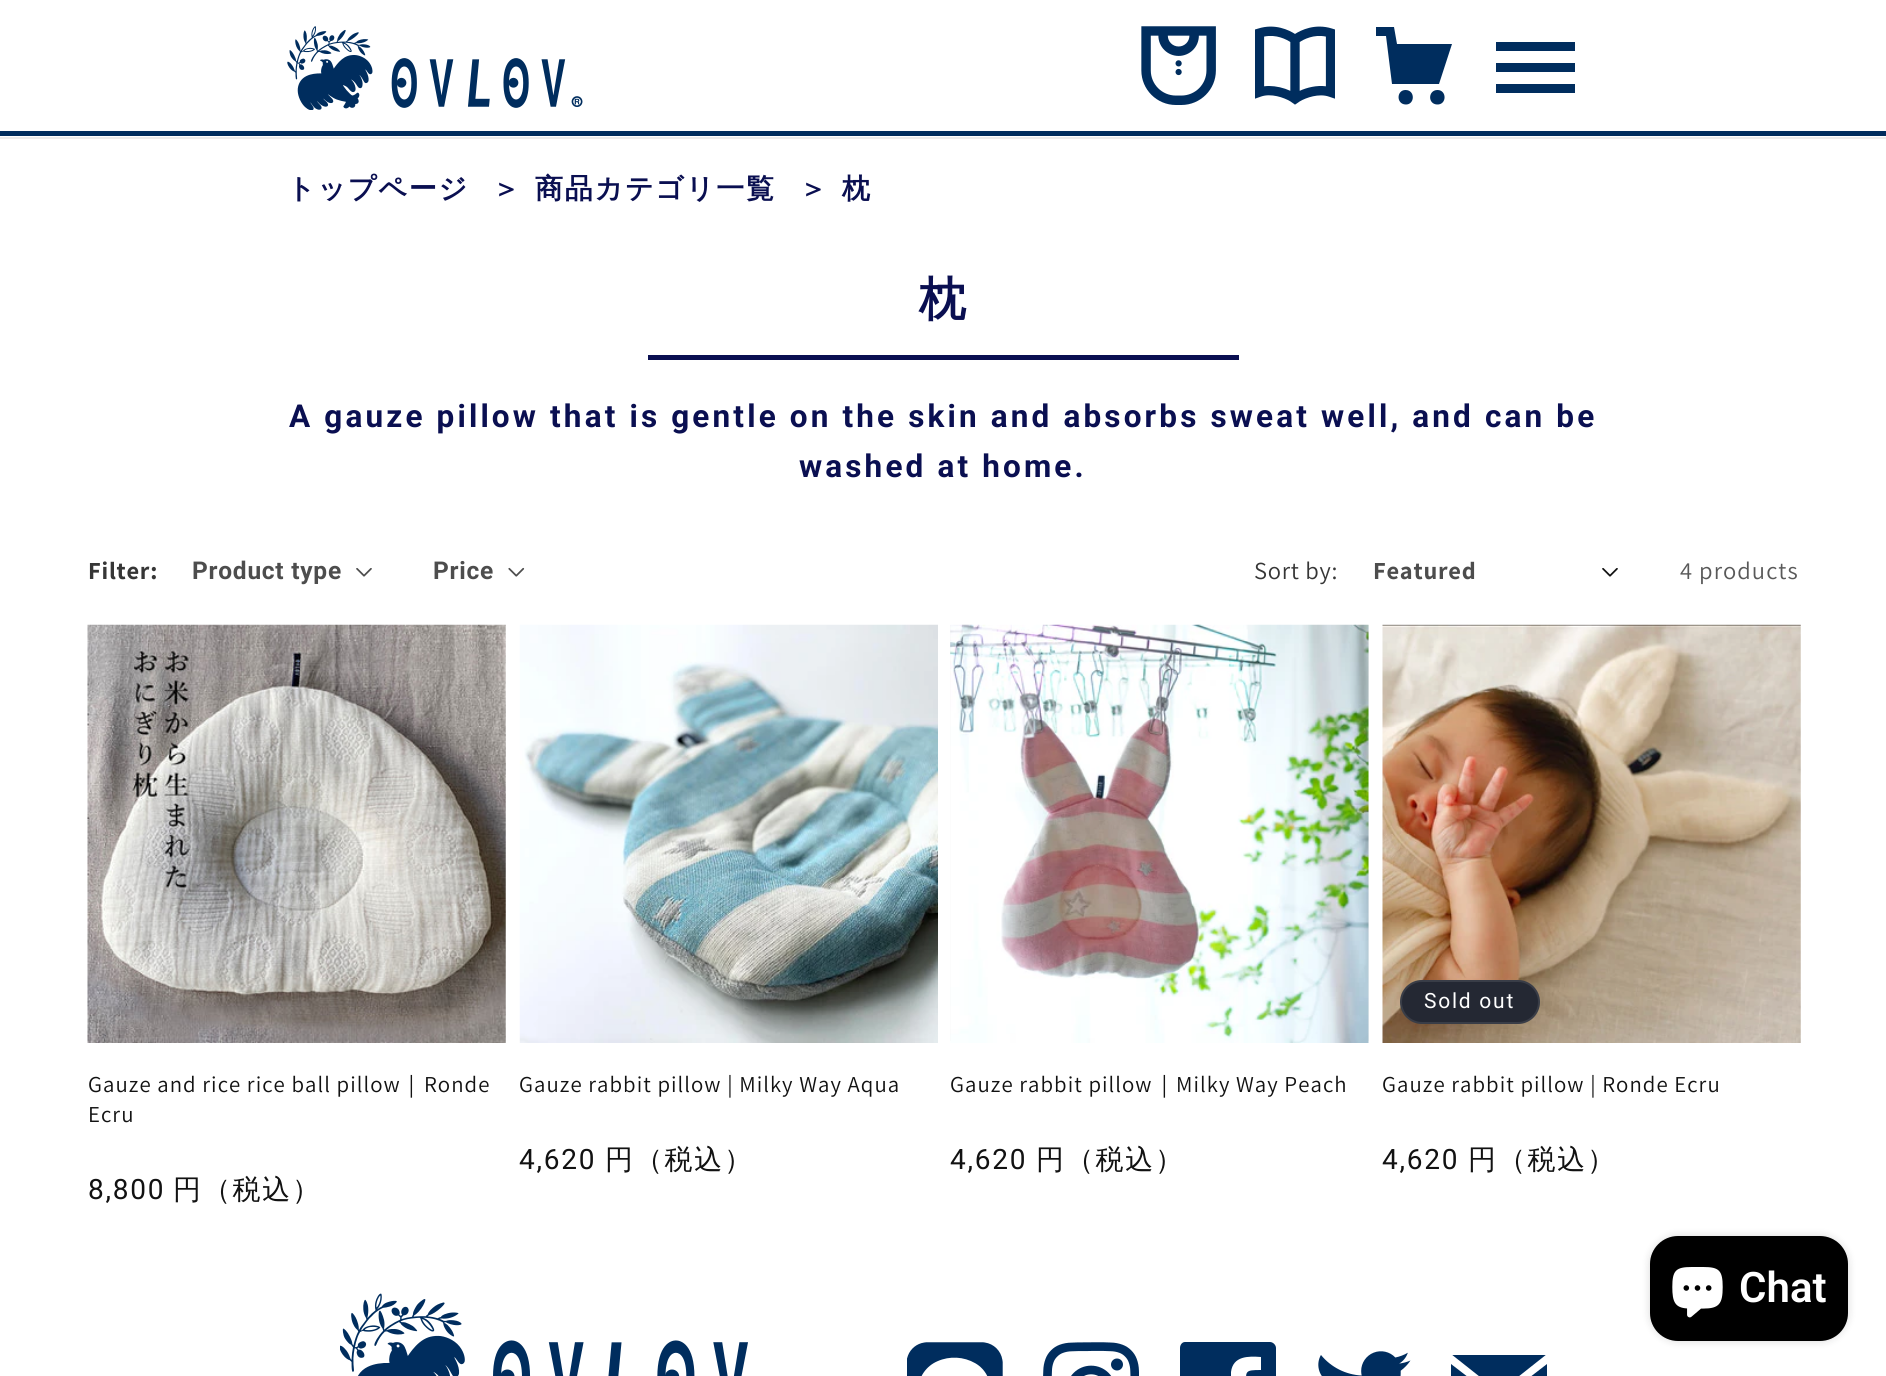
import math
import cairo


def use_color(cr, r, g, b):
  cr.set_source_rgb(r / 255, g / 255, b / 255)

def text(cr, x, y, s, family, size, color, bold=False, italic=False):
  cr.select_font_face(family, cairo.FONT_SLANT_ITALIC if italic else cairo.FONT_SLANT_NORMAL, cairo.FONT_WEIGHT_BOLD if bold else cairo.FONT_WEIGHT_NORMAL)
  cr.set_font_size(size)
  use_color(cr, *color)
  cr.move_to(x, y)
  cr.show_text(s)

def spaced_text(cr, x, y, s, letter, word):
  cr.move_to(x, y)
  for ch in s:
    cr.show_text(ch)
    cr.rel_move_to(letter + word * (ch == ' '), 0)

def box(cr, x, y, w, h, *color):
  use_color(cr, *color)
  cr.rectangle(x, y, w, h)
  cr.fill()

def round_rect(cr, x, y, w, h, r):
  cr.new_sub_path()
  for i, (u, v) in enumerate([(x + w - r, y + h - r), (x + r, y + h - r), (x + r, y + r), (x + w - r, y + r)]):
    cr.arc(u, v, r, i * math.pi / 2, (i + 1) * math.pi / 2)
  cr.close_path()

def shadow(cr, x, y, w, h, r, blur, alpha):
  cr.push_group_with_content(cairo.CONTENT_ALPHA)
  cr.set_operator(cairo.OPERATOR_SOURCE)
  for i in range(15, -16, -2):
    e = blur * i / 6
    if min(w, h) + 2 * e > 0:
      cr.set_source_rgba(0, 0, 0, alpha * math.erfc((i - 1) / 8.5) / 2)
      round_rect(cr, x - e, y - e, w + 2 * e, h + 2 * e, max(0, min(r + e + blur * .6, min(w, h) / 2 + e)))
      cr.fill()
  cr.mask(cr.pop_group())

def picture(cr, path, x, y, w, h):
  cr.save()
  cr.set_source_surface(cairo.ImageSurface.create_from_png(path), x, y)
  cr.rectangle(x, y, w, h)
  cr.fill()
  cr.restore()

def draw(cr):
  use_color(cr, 255, 255, 255)
  cr.paint()
  box(cr, 0, 137, 1886, 2, 236, 236, 236)
  box(cr, 0, 131, 1886, 5, 0, 45, 94)
  picture(cr, "img_01.png", 287, 26, 296, 84)
  picture(cr, "img_02.png", 1141, 26, 75, 79)
  picture(cr, "img_03.png", 1255, 26, 80, 79)
  cr.new_path()
  cr.move_to(1452, 44)
  cr.line_to(1397, 44)
  cr.line_to(1394, 27)
  cr.line_to(1376, 27)
  cr.line_to(1376, 36)
  cr.line_to(1386, 36)
  cr.line_to(1392, 84)
  cr.line_to(1439, 84)
  cr.close_path()
  cr.fill()
  cr.new_path()
  cr.move_to(1405.5, 90)
  cr.curve_to(1396.5, 90, 1396, 104, 1405.5, 104.5)
  cr.curve_to(1415, 105, 1415.5, 90, 1405.5, 90)
  cr.close_path()
  cr.move_to(1437.5, 90)
  cr.curve_to(1428, 90, 1427.5, 104, 1437, 104.5)
  cr.curve_to(1447, 105, 1447, 90, 1437.5, 90)
  cr.close_path()
  cr.fill()
  box(cr, 1496, 63, 79, 9, 0, 45, 94)
  box(cr, 1496, 42, 79, 9, 0, 45, 94)
  box(cr, 1496, 84, 79, 9, 0, 45, 94)
  box(cr, 648, 355, 591, 5, 10, 15, 81)
  picture(cr, "img_04.png", 356, 568, 16, 9)
  picture(cr, "img_05.png", 508, 567, 17, 10)
  picture(cr, "img_06.png", 1602, 568, 16, 9)
  picture(cr, "img_07.png", 87, 624, 419, 419)
  picture(cr, "img_08.png", 519, 624, 419, 419)
  box(cr, 950, 625, 419, 416, 243, 243, 243)
  picture(cr, "img_09.png", 950, 624, 419, 419)
  picture(cr, "img_10.png", 1382, 624, 419, 419)
  use_color(cr, 36, 40, 51)
  round_rect(cr, 1400, 980, 140, 44, 22)
  cr.fill()
  round_rect(cr, 1401, 981, 138, 42, 21)
  cr.set_source_rgba(1, 1, 1, 0.1)
  cr.stroke()
  picture(cr, "img_11.png", 340, 1293, 408, 83)
  picture(cr, "img_12.png", 907, 1342, 96, 34)
  picture(cr, "img_13.png", 1043, 1342, 96, 34)
  use_color(cr, 0, 45, 94)
  cr.new_path()
  cr.move_to(1270, 1342)
  cr.line_to(1185, 1342)
  cr.curve_to(1182, 1342, 1180, 1345, 1180, 1348)
  cr.line_to(1180, 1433)
  cr.curve_to(1180, 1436, 1182, 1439, 1185, 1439)
  cr.line_to(1231, 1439)
  cr.line_to(1231, 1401)
  cr.line_to(1218, 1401)
  cr.line_to(1218, 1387)
  cr.line_to(1231, 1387)
  cr.line_to(1231, 1372)
  cr.curve_to(1233, 1356, 1248, 1356, 1261, 1357)
  cr.line_to(1261, 1370)
  cr.curve_to(1244, 1370, 1246, 1371, 1246, 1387)
  cr.line_to(1260, 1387)
  cr.line_to(1259, 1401)
  cr.line_to(1246, 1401)
  cr.line_to(1246, 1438)
  cr.line_to(1270, 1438)
  cr.curve_to(1273, 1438, 1276, 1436, 1276, 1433)
  cr.line_to(1276, 1348)
  cr.curve_to(1276, 1345, 1273, 1342, 1270, 1342)
  cr.close_path()
  cr.fill()
  picture(cr, "img_14.png", 1318, 1351, 93, 25)
  cr.save()
  cr.rectangle(1451, 1355, 96, 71)
  cr.clip()
  cr.new_path()
  cr.move_to(1499, 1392)
  cr.line_to(1547, 1354)
  cr.line_to(1451, 1354)
  cr.close_path()
  cr.fill()
  cr.restore()
  cr.new_path()
  cr.move_to(1499, 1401)
  cr.line_to(1451, 1364)
  cr.line_to(1451, 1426)
  cr.line_to(1547, 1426)
  cr.line_to(1547, 1364)
  cr.close_path()
  cr.fill()
  use_color(cr, 0, 0, 0)
  shadow(cr, 1650, 1236, 198, 105, 28, 4.5, 0.15)
  use_color(cr, 0, 0, 0)
  round_rect(cr, 1650, 1236, 198, 105, 28)
  cr.fill()
  picture(cr, "img_15.png", 1672, 1267, 51, 51)
  cr.select_font_face("WenQuanYi Zen Hei", cairo.FONT_SLANT_NORMAL, cairo.FONT_WEIGHT_BOLD)
  cr.set_font_size(28)
  use_color(cr, 10, 15, 81)
  spaced_text(cr, 287, 198, "トップページ", 1.75, 0)
  spaced_text(cr, 492, 198, "＞", 1.75, 0)
  spaced_text(cr, 535, 198, "商品カテゴリ一覧", 1.75, 0)
  spaced_text(cr, 799, 198, "＞", 1.75, 0)
  spaced_text(cr, 842, 198, "枕", 1.75, 0)
  text(cr, 919, 315, "枕", "WenQuanYi Zen Hei", 47, (10, 15, 81), bold=True)
  cr.select_font_face("Roboto", cairo.FONT_SLANT_NORMAL, cairo.FONT_WEIGHT_BOLD)
  cr.set_font_size(31.5)
  spaced_text(cr, 289, 427, "A gauze pillow that is gentle on the skin and absorbs sweat well, and can be", 3.15, 0)
  spaced_text(cr, 799, 477, "washed at home.", 3.15, 0)
  cr.select_font_face("Assistant", cairo.FONT_SLANT_NORMAL, cairo.FONT_WEIGHT_BOLD)
  cr.set_font_size(24.5)
  use_color(cr, 54, 54, 54)
  spaced_text(cr, 88, 579, "Filter:", 0.75, 0)
  cr.select_font_face("Roboto", cairo.FONT_SLANT_NORMAL, cairo.FONT_WEIGHT_BOLD)
  use_color(cr, 77, 77, 77)
  spaced_text(cr, 192, 579, "Product type", 0.75, 0)
  spaced_text(cr, 433, 579, "Price", 0.75, 0)
  cr.select_font_face("Assistant")
  use_color(cr, 54, 54, 54)
  spaced_text(cr, 1254, 579, "Sort by:", 0.75, 0)
  cr.select_font_face("Assistant", cairo.FONT_SLANT_NORMAL, cairo.FONT_WEIGHT_BOLD)
  use_color(cr, 77, 77, 77)
  spaced_text(cr, 1373, 579, "Featured", 0.75, 0)
  cr.select_font_face("Assistant")
  use_color(cr, 89, 89, 89)
  spaced_text(cr, 1680, 579, "4 products", 1.05, 0)
  cr.set_font_size(22.75)
  use_color(cr, 18, 18, 18)
  spaced_text(cr, 88, 1092, "Gauze and rice rice ball pillow", 1.05, 0)
  cr.select_font_face("WenQuanYi Zen Hei Medium")
  spaced_text(cr, 400, 1092, "｜", 1.05, 0)
  cr.select_font_face("Assistant")
  spaced_text(cr, 424, 1092, "Ronde", 1.05, 0)
  spaced_text(cr, 88, 1122, "Ecru", 1.05, 0)
  cr.select_font_face("Roboto")
  cr.set_font_size(28)
  spaced_text(cr, 88, 1199, "8,800", 1.75, 0)
  cr.select_font_face("WenQuanYi Zen Hei Medium")
  spaced_text(cr, 173, 1199, "円（税込）", 1.75, 0)
  cr.select_font_face("Assistant")
  cr.set_font_size(22.75)
  spaced_text(cr, 519, 1092, "Gauze rabbit pillow | Milky Way Aqua", 1.05, 0)
  cr.select_font_face("Roboto")
  cr.set_font_size(28)
  spaced_text(cr, 519, 1169, "4,620", 1.75, 0)
  cr.select_font_face("WenQuanYi Zen Hei Medium")
  spaced_text(cr, 605, 1169, "円（税込）", 1.75, 0)
  cr.select_font_face("Assistant")
  cr.set_font_size(22.75)
  spaced_text(cr, 950, 1092, "Gauze rabbit pillow", 1.05, 0)
  cr.select_font_face("WenQuanYi Zen Hei Medium")
  spaced_text(cr, 1153, 1092, "｜", 1.05, 0)
  cr.select_font_face("Assistant")
  spaced_text(cr, 1176, 1092, "Milky Way Peach", 1.05, 0)
  cr.select_font_face("Roboto")
  cr.set_font_size(28)
  spaced_text(cr, 950, 1169, "4,620", 1.75, 0)
  cr.select_font_face("WenQuanYi Zen Hei Medium")
  spaced_text(cr, 1036, 1169, "円（税込）", 1.75, 0)
  cr.select_font_face("Roboto")
  cr.set_font_size(21)
  use_color(cr, 255, 255, 255)
  spaced_text(cr, 1424, 1008, "Sold out", 1.75, 0)
  cr.select_font_face("Assistant")
  cr.set_font_size(22.75)
  use_color(cr, 18, 18, 18)
  spaced_text(cr, 1382, 1092, "Gauze rabbit pillow | Ronde Ecru", 1.05, 0)
  cr.select_font_face("Roboto")
  cr.set_font_size(28)
  spaced_text(cr, 1382, 1169, "4,620", 1.75, 0)
  cr.select_font_face("WenQuanYi Zen Hei Medium")
  spaced_text(cr, 1468, 1169, "円（税込）", 1.75, 0)
  text(cr, 1739, 1302, "Chat", "Roboto SemiBold", 42, (255, 255, 255))


surface = cairo.ImageSurface(cairo.FORMAT_RGB24, 1886, 1376)
cr = cairo.Context(surface)
options = cairo.FontOptions()
options.set_hint_metrics(cairo.HINT_METRICS_OFF)
options.set_hint_style(cairo.HINT_STYLE_NONE)
cr.set_font_options(options)
cr.set_miter_limit(4)
draw(cr)
surface.write_to_png("out.png")
